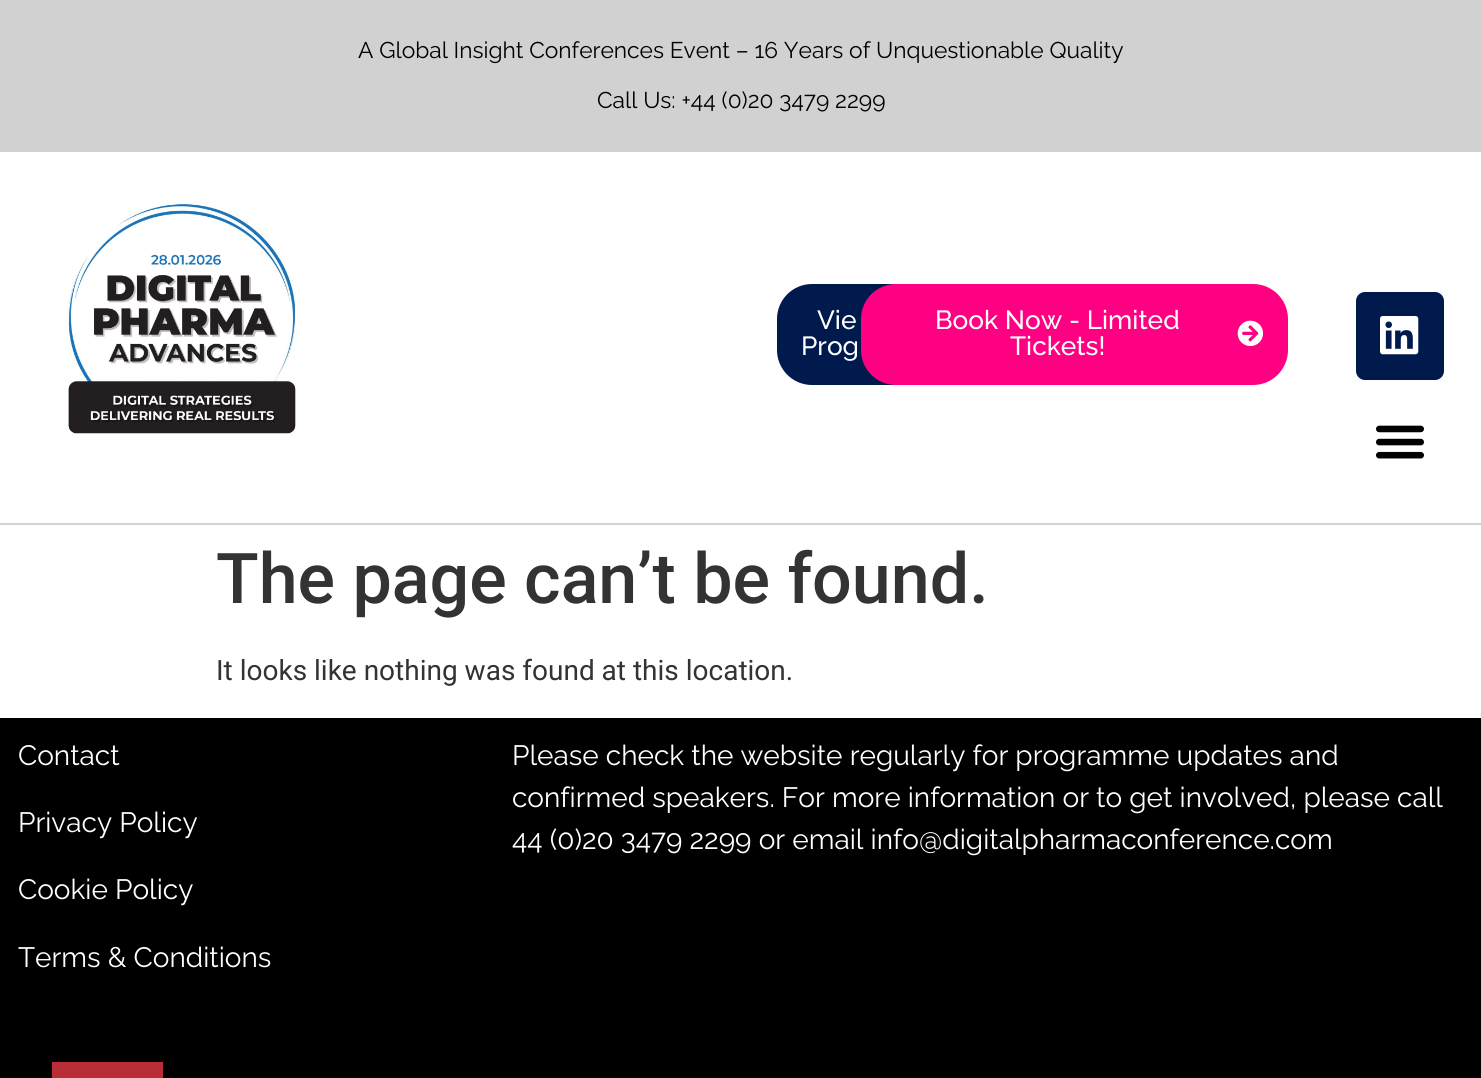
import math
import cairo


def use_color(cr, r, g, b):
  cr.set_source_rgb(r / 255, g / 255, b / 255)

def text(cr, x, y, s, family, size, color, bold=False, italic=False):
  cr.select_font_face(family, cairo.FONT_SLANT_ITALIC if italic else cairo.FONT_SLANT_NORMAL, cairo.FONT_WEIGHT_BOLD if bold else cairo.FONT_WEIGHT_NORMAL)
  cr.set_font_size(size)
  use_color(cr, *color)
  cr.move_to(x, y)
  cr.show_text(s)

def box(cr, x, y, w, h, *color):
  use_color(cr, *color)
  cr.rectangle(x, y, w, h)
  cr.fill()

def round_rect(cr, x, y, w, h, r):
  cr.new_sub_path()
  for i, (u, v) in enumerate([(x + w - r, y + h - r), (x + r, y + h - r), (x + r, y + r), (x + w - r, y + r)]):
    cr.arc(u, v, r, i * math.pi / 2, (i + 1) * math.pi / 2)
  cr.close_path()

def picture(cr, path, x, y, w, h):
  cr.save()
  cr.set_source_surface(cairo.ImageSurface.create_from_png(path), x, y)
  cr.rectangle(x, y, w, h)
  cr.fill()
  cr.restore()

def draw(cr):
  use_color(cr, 255, 255, 255)
  cr.paint()
  box(cr, 0, 0, 1481, 151, 209, 209, 209)
  box(cr, 0, 151, 1481, 1, 211, 211, 211)
  box(cr, 0, 523, 1481, 2, 211, 211, 211)
  picture(cr, "img_01.png", 68, 201, 228, 233)
  use_color(cr, 0, 26, 78)
  round_rect(cr, 777, 284, 229, 101, 35)
  cr.fill()
  use_color(cr, 255, 0, 130)
  round_rect(cr, 861, 284, 427, 101, 35)
  cr.fill()
  picture(cr, "img_02.png", 1237, 320, 27, 27)
  use_color(cr, 0, 26, 78)
  round_rect(cr, 1356, 292, 88, 88, 9)
  cr.fill()
  picture(cr, "img_03.png", 1380, 316, 39, 39)
  picture(cr, "img_04.png", 1376, 425, 48, 34)
  box(cr, 0, 718, 1481, 360, 0, 0, 0)
  box(cr, 52, 1062, 111, 16, 184, 45, 54)
  text(cr, 358, 58, "A Global Insight Conferences Event – 16 Years of Unquestionable Quality", "Raleway", 22.75, (0, 0, 0))
  text(cr, 597, 108, "Call Us: +44 (0)20 3479 2299", "Raleway", 22.75, (0, 0, 0))
  text(cr, 817, 329, "Vie", "Raleway Medium", 26.25, (255, 255, 255))
  text(cr, 801, 355, "Prog", "Raleway Medium", 26.25, (255, 255, 255))
  text(cr, 935, 329, "Book Now - Limited", "Raleway Medium", 26.25, (255, 255, 255))
  text(cr, 1010, 355, "Tickets!", "Raleway Medium", 26.25, (255, 255, 255))
  text(cr, 216, 603, "The page can’t be found.", "Roboto Medium", 70, (51, 51, 51))
  text(cr, 216, 680, "It looks like nothing was found at this location.", "Roboto", 28, (51, 51, 51))
  text(cr, 18, 765, "Contact", "Raleway", 28, (255, 255, 255))
  text(cr, 18, 832, "Privacy Policy", "Raleway", 28, (255, 255, 255))
  text(cr, 18, 899, "Cookie Policy", "Raleway", 28, (255, 255, 255))
  text(cr, 18, 967, "Terms & Conditions", "Raleway", 28, (255, 255, 255))
  text(cr, 512, 765, "Please check the website regularly for programme updates and", "Raleway", 28, (255, 255, 255))
  text(cr, 512, 807, "confirmed speakers. For more information or to get involved, please call", "Raleway", 28, (255, 255, 255))
  text(cr, 512, 849, "44 (0)20 3479 2299 or email info@digitalpharmaconference.com", "Raleway", 28, (255, 255, 255))


surface = cairo.ImageSurface(cairo.FORMAT_RGB24, 1481, 1078)
cr = cairo.Context(surface)
options = cairo.FontOptions()
options.set_hint_metrics(cairo.HINT_METRICS_OFF)
options.set_hint_style(cairo.HINT_STYLE_NONE)
cr.set_font_options(options)
cr.set_miter_limit(4)
draw(cr)
surface.write_to_png("out.png")
